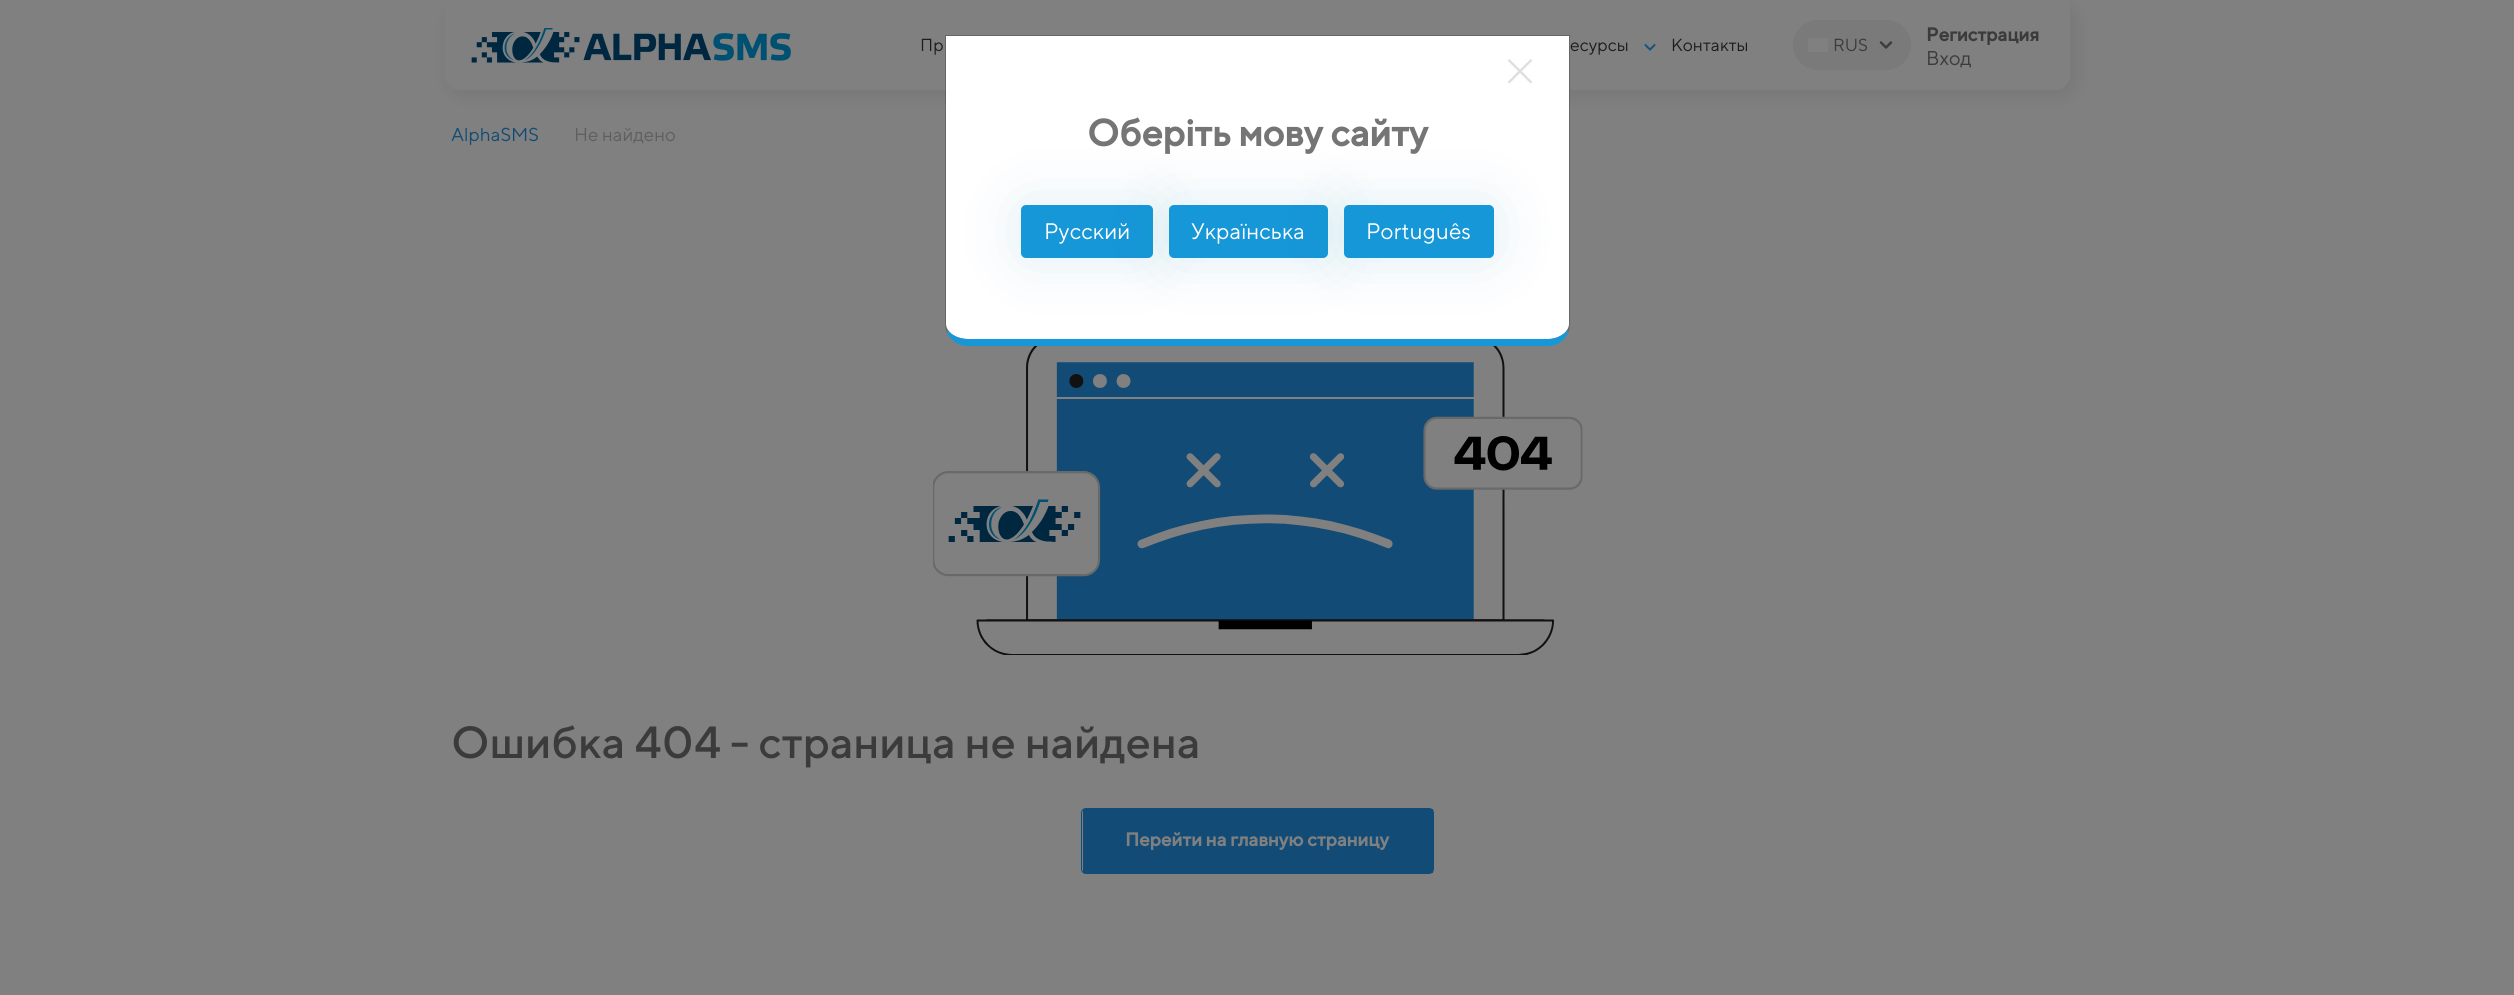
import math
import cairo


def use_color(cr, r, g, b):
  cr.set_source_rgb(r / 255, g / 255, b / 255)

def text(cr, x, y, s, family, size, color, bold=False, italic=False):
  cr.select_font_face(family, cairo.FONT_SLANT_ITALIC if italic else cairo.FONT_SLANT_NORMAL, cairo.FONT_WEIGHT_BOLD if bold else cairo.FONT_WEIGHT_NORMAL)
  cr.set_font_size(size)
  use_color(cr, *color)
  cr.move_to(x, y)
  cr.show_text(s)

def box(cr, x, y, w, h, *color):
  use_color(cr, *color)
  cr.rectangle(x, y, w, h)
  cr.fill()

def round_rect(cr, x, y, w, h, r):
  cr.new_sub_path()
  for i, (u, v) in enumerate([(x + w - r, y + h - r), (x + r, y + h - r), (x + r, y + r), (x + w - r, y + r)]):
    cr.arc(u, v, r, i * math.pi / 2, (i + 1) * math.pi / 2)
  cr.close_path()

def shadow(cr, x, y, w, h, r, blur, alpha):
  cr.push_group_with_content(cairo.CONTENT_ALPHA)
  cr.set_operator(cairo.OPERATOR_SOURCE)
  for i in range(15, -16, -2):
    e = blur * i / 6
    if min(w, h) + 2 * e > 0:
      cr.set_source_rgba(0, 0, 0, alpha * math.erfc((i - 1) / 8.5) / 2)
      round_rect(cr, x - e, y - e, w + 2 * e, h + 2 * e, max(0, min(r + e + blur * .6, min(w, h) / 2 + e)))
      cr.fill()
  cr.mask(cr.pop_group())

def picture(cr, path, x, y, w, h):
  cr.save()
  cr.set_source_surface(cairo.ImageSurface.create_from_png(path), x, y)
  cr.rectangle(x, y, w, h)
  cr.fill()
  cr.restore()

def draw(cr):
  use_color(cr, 128, 128, 128)
  cr.paint()
  use_color(cr, 0, 0, 0)
  shadow(cr, 450, 5, 1625, 90, 15, 9, 0.08)
  use_color(cr, 128, 128, 128)
  cr.new_path()
  cr.move_to(445, 0)
  cr.line_to(2070, 0)
  cr.line_to(2070, 75)
  cr.curve_to(2070, 83.5, 2063.5, 90, 2055, 90)
  cr.line_to(460, 90)
  cr.curve_to(451.5, 90, 445, 83.5, 445, 75)
  cr.close_path()
  cr.fill()
  picture(cr, "img_01.png", 471, 28, 320, 35)
  picture(cr, "img_02.png", 1644, 43, 12, 8)
  use_color(cr, 122, 122, 122)
  round_rect(cr, 1793, 20, 118, 50, 25)
  cr.fill()
  box(cr, 1808, 38, 20, 14, 128, 128, 128)
  cr.new_path()
  cr.move_to(1881, 42.5)
  cr.line_to(1886, 47.5)
  cr.line_to(1891, 42.5)
  use_color(cr, 61, 61, 61)
  cr.set_line_width(2.5)
  cr.set_line_cap(cairo.LINE_CAP_ROUND)
  cr.set_line_join(cairo.LINE_JOIN_ROUND)
  cr.stroke()
  use_color(cr, 255, 255, 255)
  cr.new_path()
  cr.move_to(946, 36)
  cr.line_to(1569, 36)
  cr.line_to(1569, 324)
  cr.curve_to(1569, 332, 1559, 339, 1548, 339)
  cr.line_to(968, 339)
  cr.curve_to(956, 339, 946, 332, 946, 324)
  cr.close_path()
  cr.fill()
  use_color(cr, 102, 102, 102)
  cr.new_path()
  cr.move_to(945, 35)
  cr.line_to(946, 36)
  cr.line_to(1569, 36)
  cr.line_to(1570, 35)
  cr.close_path()
  cr.fill()
  cr.set_source_rgba(0, 0, 0, 0.2)
  cr.new_path()
  cr.move_to(1570, 35)
  cr.line_to(1569, 36)
  cr.line_to(1569, 324)
  cr.curve_to(1569, 326, 1568, 328, 1567, 330)
  cr.line_to(1568, 333)
  cr.curve_to(1569, 331, 1570, 327, 1570, 324)
  cr.close_path()
  cr.fill()
  use_color(cr, 22, 151, 215)
  cr.new_path()
  cr.move_to(1568, 333)
  cr.curve_to(1564, 341, 1557, 346, 1548, 346)
  cr.line_to(968, 346)
  cr.curve_to(959, 346, 951, 341, 947, 333)
  cr.line_to(948, 330)
  cr.curve_to(951, 335, 959, 339, 968, 339)
  cr.line_to(1548, 339)
  cr.curve_to(1556, 339, 1564, 335, 1567, 330)
  cr.close_path()
  cr.fill()
  cr.set_source_rgba(0, 0, 0, 0.2)
  cr.new_path()
  cr.move_to(946, 36)
  cr.line_to(945, 35)
  cr.line_to(945, 324)
  cr.curve_to(945, 327, 946, 330, 947, 333)
  cr.line_to(948, 330)
  cr.curve_to(947, 328, 946, 326, 946, 324)
  cr.close_path()
  cr.fill()
  use_color(cr, 223, 223, 223)
  cr.new_path()
  cr.move_to(1507.5, 60.5)
  cr.line_to(1509.5, 59)
  cr.line_to(1532.5, 82)
  cr.line_to(1530.5, 83.5)
  cr.close_path()
  cr.fill()
  cr.new_path()
  cr.move_to(1530.5, 59)
  cr.line_to(1532.5, 60.5)
  cr.line_to(1509.5, 83.5)
  cr.line_to(1507.5, 82)
  cr.close_path()
  cr.fill()
  picture(cr, "img_03.png", 933, 346, 650, 309)
  use_color(cr, 0, 125, 172)
  shadow(cr, 1021, 205, 132, 53, 5, 31, 0.13)
  use_color(cr, 22, 151, 215)
  round_rect(cr, 1021, 205, 132, 53, 5)
  cr.fill()
  use_color(cr, 0, 125, 172)
  shadow(cr, 1169, 205, 159, 53, 5, 31, 0.13)
  use_color(cr, 22, 151, 215)
  round_rect(cr, 1169, 205, 159, 53, 5)
  cr.fill()
  use_color(cr, 0, 125, 172)
  shadow(cr, 1344, 205, 150, 53, 5, 31, 0.13)
  use_color(cr, 22, 151, 215)
  round_rect(cr, 1344, 205, 150, 53, 5)
  cr.fill()
  box(cr, 1083, 809, 350, 64, 18, 76, 118)
  round_rect(cr, 1081.5, 808.5, 352, 65, 4.5)
  cr.set_line_width(1)
  cr.set_line_cap(cairo.LINE_CAP_BUTT)
  cr.set_line_join(cairo.LINE_JOIN_MITER)
  cr.stroke()
  text(cr, 920, 51, "Пр", "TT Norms", 17.5, (29, 29, 29))
  text(cr, 1570, 51, "есурсы", "TT Norms", 17.5, (29, 29, 29))
  text(cr, 1671, 51, "Контакты", "TT Norms", 17.5, (29, 29, 29))
  text(cr, 1833, 51, "RUS", "TT Norms", 17.5, (59, 59, 59))
  text(cr, 1926, 41, "Регистрация", "TT Norms", 18.75, (59, 59, 59), bold=True)
  text(cr, 1926, 65, "Вход", "TT Norms", 20, (59, 59, 59))
  text(cr, 451, 141, "AlphaSMS", "TT Norms", 18.75, (18, 76, 118))
  text(cr, 574, 141, "Не найдено", "TT Norms", 18.75, (95, 95, 95))
  text(cr, 1087, 146, "Оберіть мову сайту", "TT Norms", 37.5, (117, 117, 117), bold=True)
  text(cr, 1044, 239, "Русский", "TT Norms", 22.5, (255, 255, 255))
  text(cr, 1191, 239, "Українська", "TT Norms", 22.5, (255, 255, 255))
  text(cr, 1366, 239, "Português", "TT Norms", 22.5, (255, 255, 255))
  text(cr, 451, 758, "Ошибка 404 - страница не найдена", "TT Norms Medium", 45, (59, 59, 59))
  text(cr, 1125, 846, "Перейти на главную страницу", "TT Norms", 18.75, (128, 128, 128), bold=True)


surface = cairo.ImageSurface(cairo.FORMAT_RGB24, 2514, 995)
cr = cairo.Context(surface)
options = cairo.FontOptions()
options.set_hint_metrics(cairo.HINT_METRICS_OFF)
options.set_hint_style(cairo.HINT_STYLE_NONE)
cr.set_font_options(options)
cr.set_miter_limit(4)
draw(cr)
surface.write_to_png("out.png")
